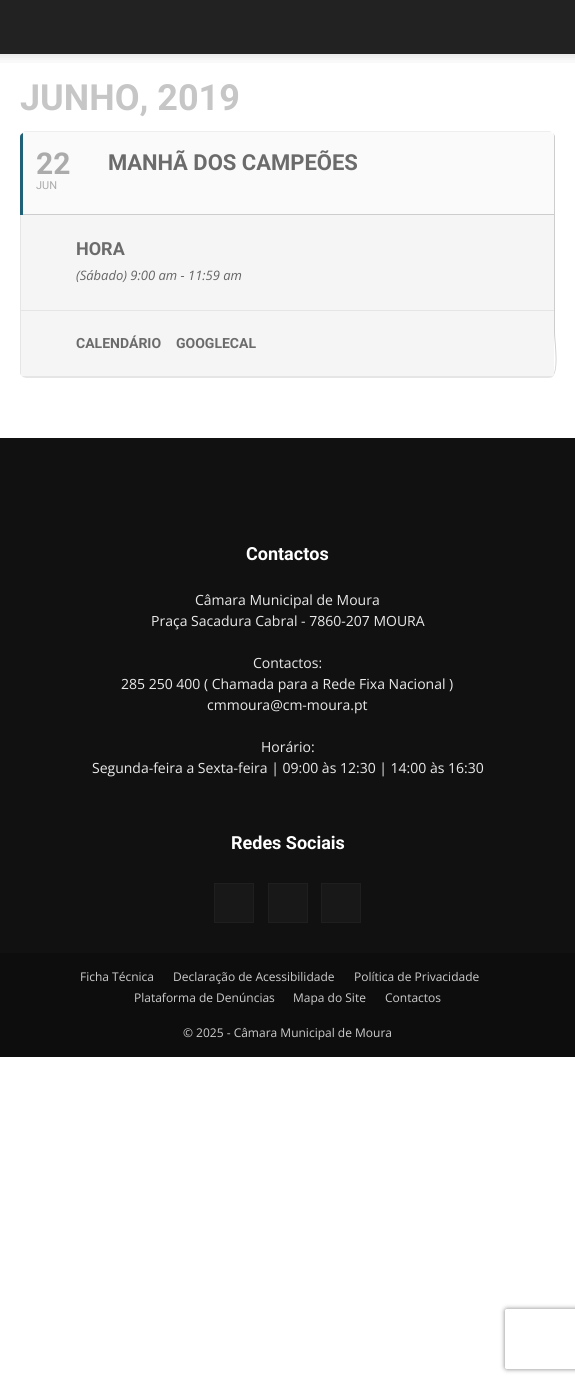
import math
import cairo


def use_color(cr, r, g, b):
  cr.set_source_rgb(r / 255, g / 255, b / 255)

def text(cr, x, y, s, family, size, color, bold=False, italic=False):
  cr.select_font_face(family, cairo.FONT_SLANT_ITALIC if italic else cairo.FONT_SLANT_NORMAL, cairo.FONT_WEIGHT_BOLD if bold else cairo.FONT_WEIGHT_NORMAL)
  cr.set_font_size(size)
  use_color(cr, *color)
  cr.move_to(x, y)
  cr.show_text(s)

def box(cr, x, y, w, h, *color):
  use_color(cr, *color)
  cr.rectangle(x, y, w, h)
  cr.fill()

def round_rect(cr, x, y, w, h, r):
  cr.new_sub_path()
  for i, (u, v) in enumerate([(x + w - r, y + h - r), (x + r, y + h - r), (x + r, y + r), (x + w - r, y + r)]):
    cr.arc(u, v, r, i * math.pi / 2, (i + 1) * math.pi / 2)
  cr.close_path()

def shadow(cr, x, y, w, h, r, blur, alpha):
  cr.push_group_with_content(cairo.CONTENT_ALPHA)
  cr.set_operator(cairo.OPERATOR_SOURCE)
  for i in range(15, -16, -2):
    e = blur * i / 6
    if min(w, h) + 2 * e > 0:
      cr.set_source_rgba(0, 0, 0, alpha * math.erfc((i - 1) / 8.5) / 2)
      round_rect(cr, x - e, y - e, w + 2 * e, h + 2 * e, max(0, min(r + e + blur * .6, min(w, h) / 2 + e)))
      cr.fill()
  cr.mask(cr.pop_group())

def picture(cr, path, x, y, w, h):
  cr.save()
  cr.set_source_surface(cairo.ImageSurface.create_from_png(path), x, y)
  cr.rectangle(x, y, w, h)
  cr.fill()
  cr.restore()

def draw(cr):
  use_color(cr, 255, 255, 255)
  cr.paint()
  box(cr, 0, 0, 575, 54, 34, 34, 34)
  picture(cr, "img_01.png", 0, 54, 575, 9)
  use_color(cr, 239, 238, 238)
  cr.new_path()
  cr.move_to(26, 131)
  cr.line_to(549, 131)
  cr.curve_to(550, 131, 552, 132, 553, 133)
  cr.curve_to(552, 132, 550, 132, 549, 132)
  cr.line_to(26, 132)
  cr.curve_to(23, 132, 20, 134, 20, 137)
  cr.curve_to(20, 134, 23, 131, 26, 131)
  cr.close_path()
  cr.fill()
  use_color(cr, 205, 205, 205)
  cr.new_path()
  cr.move_to(553, 133)
  cr.line_to(554, 136)
  cr.line_to(554, 333)
  cr.curve_to(554, 340, 560, 378, 549, 378)
  cr.curve_to(561, 378, 555, 342, 555, 333)
  cr.line_to(555, 136)
  cr.close_path()
  cr.fill()
  use_color(cr, 250, 250, 250)
  cr.new_path()
  cr.move_to(26, 132)
  cr.curve_to(23, 132, 20, 134, 20, 137)
  cr.line_to(20, 215)
  cr.line_to(554, 215)
  cr.line_to(554, 137)
  cr.curve_to(554, 134, 552, 132, 549, 132)
  cr.close_path()
  cr.fill()
  use_color(cr, 32, 97, 119)
  cr.new_path()
  cr.move_to(23, 133)
  cr.curve_to(21, 134, 20, 135, 20, 137)
  cr.line_to(20, 215)
  cr.line_to(23, 215)
  cr.close_path()
  cr.fill()
  box(cr, 23, 214, 531, 1, 205, 205, 205)
  use_color(cr, 245, 245, 245)
  cr.new_path()
  cr.move_to(20, 215)
  cr.line_to(20, 372)
  cr.curve_to(20, 375, 23, 378, 26, 378)
  cr.line_to(549, 378)
  cr.curve_to(552, 378, 554, 375, 554, 372)
  cr.line_to(554, 215)
  cr.close_path()
  cr.fill()
  use_color(cr, 229, 229, 229)
  cr.new_path()
  cr.move_to(26, 378)
  cr.line_to(549, 378)
  cr.line_to(552, 377)
  cr.line_to(23, 377)
  cr.close_path()
  cr.fill()
  cr.new_path()
  cr.move_to(20, 215)
  cr.line_to(20, 372)
  cr.curve_to(20, 373, 20, 374, 21, 375)
  cr.line_to(21, 215)
  cr.close_path()
  cr.fill()
  box(cr, 21, 310, 533, 1, 229, 229, 229)
  use_color(cr, 245, 245, 245)
  cr.new_path()
  cr.move_to(21, 311)
  cr.line_to(554, 311)
  cr.line_to(554, 372)
  cr.curve_to(554, 374, 553, 376, 552, 377)
  cr.line_to(23, 377)
  cr.line_to(21, 375)
  cr.close_path()
  cr.fill()
  use_color(cr, 229, 229, 229)
  cr.new_path()
  cr.move_to(23, 377)
  cr.line_to(22, 376)
  cr.line_to(553, 376)
  cr.line_to(552, 377)
  cr.close_path()
  cr.fill()
  box(cr, 0, 438, 575, 515, 17, 17, 17)
  use_color(cr, 24, 24, 24)
  cr.rectangle(214.5, 883.5, 39, 39)
  cr.fill_preserve()
  use_color(cr, 31, 31, 31)
  cr.set_line_width(1)
  cr.stroke()
  use_color(cr, 24, 24, 24)
  cr.rectangle(268.5, 883.5, 39, 39)
  cr.fill_preserve()
  use_color(cr, 31, 31, 31)
  cr.stroke()
  use_color(cr, 24, 24, 24)
  cr.rectangle(321.5, 883.5, 39, 39)
  cr.fill_preserve()
  use_color(cr, 31, 31, 31)
  cr.stroke()
  box(cr, 0, 953, 575, 104, 13, 13, 13)
  cr.save()
  cr.set_fill_rule(cairo.FILL_RULE_EVEN_ODD)
  cr.new_path()
  cr.move_to(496, 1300)
  cr.line_to(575, 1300)
  cr.line_to(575, 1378)
  cr.line_to(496, 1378)
  cr.close_path()
  cr.move_to(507, 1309)
  cr.line_to(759, 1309)
  cr.curve_to(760, 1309, 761, 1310, 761, 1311)
  cr.line_to(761, 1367)
  cr.curve_to(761, 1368, 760, 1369, 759, 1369)
  cr.line_to(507, 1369)
  cr.curve_to(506, 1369, 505, 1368, 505, 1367)
  cr.line_to(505, 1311)
  cr.curve_to(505, 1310, 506, 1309, 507, 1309)
  cr.close_path()
  cr.clip()
  use_color(cr, 128, 128, 128)
  shadow(cr, 505, 1309, 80, 60, 2, 2.5, 1)
  cr.restore()
  text(cr, 20, 110, "JUNHO, 2019", "Roboto", 36, (198, 198, 198), bold=True)
  text(cr, 36, 174, "22", "Roboto", 30, (171, 171, 171), bold=True)
  text(cr, 36, 189, "JUN", "Roboto", 11, (171, 171, 171))
  text(cr, 108, 170, "MANHÃ DOS CAMPEÕES", "Roboto", 22, (107, 107, 107), bold=True)
  text(cr, 76, 255, "HORA", "Roboto", 18, (107, 107, 107), bold=True)
  text(cr, 76, 280, "(Sábado) 9:00 am - 11:59 am", "Open Sans", 13, (101, 101, 101), italic=True)
  text(cr, 76, 348, "CALENDÁRIO", "Roboto", 14, (107, 107, 107), bold=True)
  text(cr, 176, 348, "GOOGLECAL", "Roboto", 14, (107, 107, 107), bold=True)
  text(cr, 246, 560, "Contactos", "Roboto", 18, (255, 255, 255), bold=True)
  text(cr, 195, 605, "Câmara Municipal de Moura", "Open Sans", 14, (234, 234, 234))
  text(cr, 151, 626, "Praça Sacadura Cabral - 7860-207 MOURA", "Open Sans", 14, (234, 234, 234))
  text(cr, 253, 668, "Contactos:", "Open Sans", 14, (234, 234, 234))
  text(cr, 121, 689, "285 250 400 ( Chamada para a Rede Fixa Nacional )", "Open Sans", 14, (234, 234, 234))
  text(cr, 207, 710, "cmmoura@cm-moura.pt", "Open Sans", 14, (234, 234, 234))
  text(cr, 261, 752, "Horário:", "Open Sans", 14, (234, 234, 234))
  text(cr, 92, 773, "Segunda-feira a Sexta-feira | 09:00 às 12:30 | 14:00 às 16:30", "Open Sans", 14, (234, 234, 234))
  text(cr, 231, 849, "Redes Sociais", "Roboto", 18, (255, 255, 255), bold=True)
  text(cr, 80, 981, "Ficha Técnica", "Open Sans", 12, (204, 204, 204))
  text(cr, 173, 981, "Declaração de Acessibilidade", "Open Sans", 12, (204, 204, 204))
  text(cr, 354, 981, "Política de Privacidade", "Open Sans", 12, (204, 204, 204))
  text(cr, 134, 1002, "Plataforma de Denúncias", "Open Sans", 12, (204, 204, 204))
  text(cr, 293, 1002, "Mapa do Site", "Open Sans", 12, (204, 204, 204))
  text(cr, 385, 1002, "Contactos", "Open Sans", 12, (204, 204, 204))
  text(cr, 183, 1037, "© 2025 - Câmara Municipal de Moura", "Open Sans", 12, (204, 204, 204))


surface = cairo.ImageSurface(cairo.FORMAT_RGB24, 575, 1383)
cr = cairo.Context(surface)
options = cairo.FontOptions()
options.set_hint_metrics(cairo.HINT_METRICS_OFF)
options.set_hint_style(cairo.HINT_STYLE_NONE)
cr.set_font_options(options)
cr.set_miter_limit(4)
draw(cr)
surface.write_to_png("out.png")
